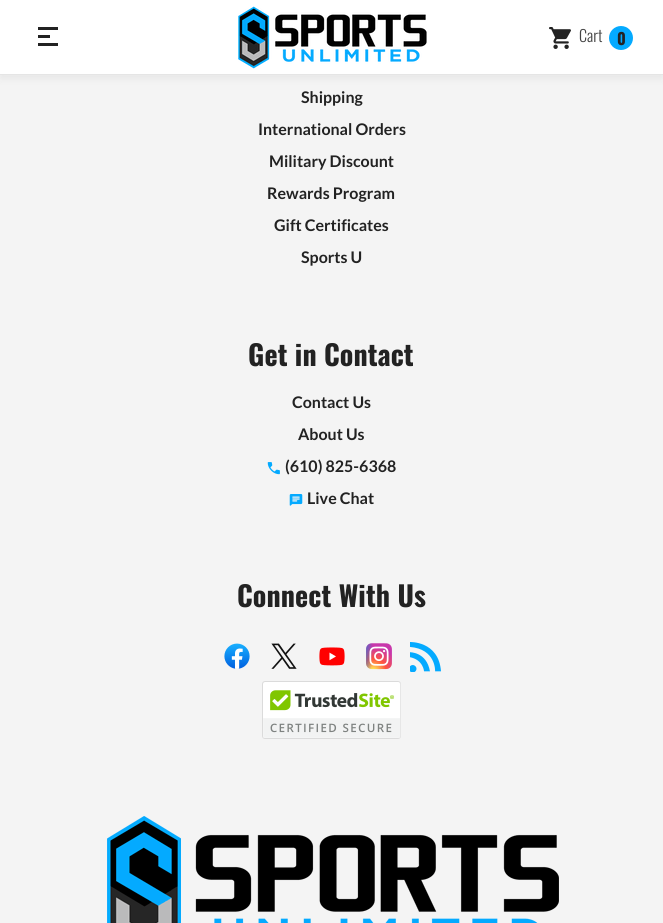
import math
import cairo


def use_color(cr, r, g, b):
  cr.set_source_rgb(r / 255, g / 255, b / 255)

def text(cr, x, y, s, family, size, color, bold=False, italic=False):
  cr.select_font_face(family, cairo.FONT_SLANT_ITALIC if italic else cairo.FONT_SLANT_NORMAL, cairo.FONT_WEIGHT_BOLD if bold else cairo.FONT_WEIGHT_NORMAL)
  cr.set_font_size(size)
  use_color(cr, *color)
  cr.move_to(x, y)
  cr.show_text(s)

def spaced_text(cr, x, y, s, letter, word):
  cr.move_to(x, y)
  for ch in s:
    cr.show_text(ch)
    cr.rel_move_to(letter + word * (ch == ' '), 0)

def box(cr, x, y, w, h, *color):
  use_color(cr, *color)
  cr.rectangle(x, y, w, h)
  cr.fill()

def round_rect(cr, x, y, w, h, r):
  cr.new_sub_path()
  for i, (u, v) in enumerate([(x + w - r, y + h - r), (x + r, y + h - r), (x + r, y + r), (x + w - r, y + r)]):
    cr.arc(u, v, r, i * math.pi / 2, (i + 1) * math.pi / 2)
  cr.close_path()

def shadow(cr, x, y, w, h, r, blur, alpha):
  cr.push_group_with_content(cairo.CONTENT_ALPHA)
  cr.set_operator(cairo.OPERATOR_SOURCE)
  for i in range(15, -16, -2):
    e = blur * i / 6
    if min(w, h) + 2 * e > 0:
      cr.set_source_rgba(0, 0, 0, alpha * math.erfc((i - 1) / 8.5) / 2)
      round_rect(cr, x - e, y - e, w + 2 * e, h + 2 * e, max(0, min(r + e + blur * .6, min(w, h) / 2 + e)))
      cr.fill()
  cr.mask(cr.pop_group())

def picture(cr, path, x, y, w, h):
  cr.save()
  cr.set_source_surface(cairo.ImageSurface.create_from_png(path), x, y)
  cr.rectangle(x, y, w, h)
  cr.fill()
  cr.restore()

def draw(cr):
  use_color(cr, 244, 244, 244)
  cr.paint()
  use_color(cr, 34, 34, 34)
  shadow(cr, 0, 4, 663, 75, 0, 4, 0.06)
  box(cr, 0, 0, 663, 74, 255, 255, 255)
  box(cr, 0, 74, 663, 1, 229, 229, 229)
  box(cr, 38, 35, 12, 3, 34, 34, 34)
  box(cr, 38, 27, 20, 3, 34, 34, 34)
  box(cr, 38, 43, 20, 3, 34, 34, 34)
  picture(cr, "img_01.png", 238, 6, 189, 63)
  picture(cr, "img_02.png", 549, 27, 22, 22)
  use_color(cr, 4, 170, 255)
  cr.arc(621, 38, 12, 0, 2 * math.pi)
  cr.fill()
  picture(cr, "img_03.png", 267, 462, 13, 13)
  picture(cr, "img_04.png", 289, 494, 14, 12)
  picture(cr, "img_05.png", 224, 643, 26, 26)
  picture(cr, "img_06.png", 271, 643, 26, 26)
  picture(cr, "img_07.png", 319, 647, 26, 19)
  picture(cr, "img_08.png", 366, 643, 26, 27)
  picture(cr, "img_09.png", 410, 642, 31, 30)
  picture(cr, "img_10.png", 262, 681, 139, 58)
  picture(cr, "img_11.png", 107, 816, 452, 107)
  text(cr, 579, 42, "Cart", "Oswald Light", 16, (68, 68, 68))
  text(cr, 617, 45, "0", "Oswald", 16, (34, 34, 34), bold=True)
  text(cr, 301, 103, "Shipping", "Lato", 16, (34, 34, 34), bold=True)
  text(cr, 258, 135, "International Orders", "Lato", 16, (34, 34, 34), bold=True)
  text(cr, 269, 167, "Military Discount", "Lato", 16, (34, 34, 34), bold=True)
  text(cr, 267, 199, "Rewards Program", "Lato", 16, (34, 34, 34), bold=True)
  text(cr, 274, 231, "Gift Certificates", "Lato", 16, (34, 34, 34), bold=True)
  text(cr, 301, 263, "Sports U", "Lato", 16, (34, 34, 34), bold=True)
  cr.select_font_face("Oswald", cairo.FONT_SLANT_NORMAL, cairo.FONT_WEIGHT_BOLD)
  cr.set_font_size(28)
  spaced_text(cr, 248, 366, "Get in Contact", 0.1, 0)
  text(cr, 292, 408, "Contact Us", "Lato", 16, (34, 34, 34), bold=True)
  text(cr, 298, 440, "About Us", "Lato", 16, (34, 34, 34), bold=True)
  text(cr, 285, 472, "(610) 825-6368", "Lato", 16, (34, 34, 34), bold=True)
  text(cr, 307, 504, "Live Chat", "Lato", 16, (34, 34, 34), bold=True)
  cr.select_font_face("Oswald", cairo.FONT_SLANT_NORMAL, cairo.FONT_WEIGHT_BOLD)
  cr.set_font_size(28)
  spaced_text(cr, 237, 607, "Connect With Us", 0.1, 0)


surface = cairo.ImageSurface(cairo.FORMAT_RGB24, 663, 923)
cr = cairo.Context(surface)
options = cairo.FontOptions()
options.set_hint_metrics(cairo.HINT_METRICS_OFF)
options.set_hint_style(cairo.HINT_STYLE_NONE)
cr.set_font_options(options)
cr.set_miter_limit(4)
draw(cr)
surface.write_to_png("out.png")
